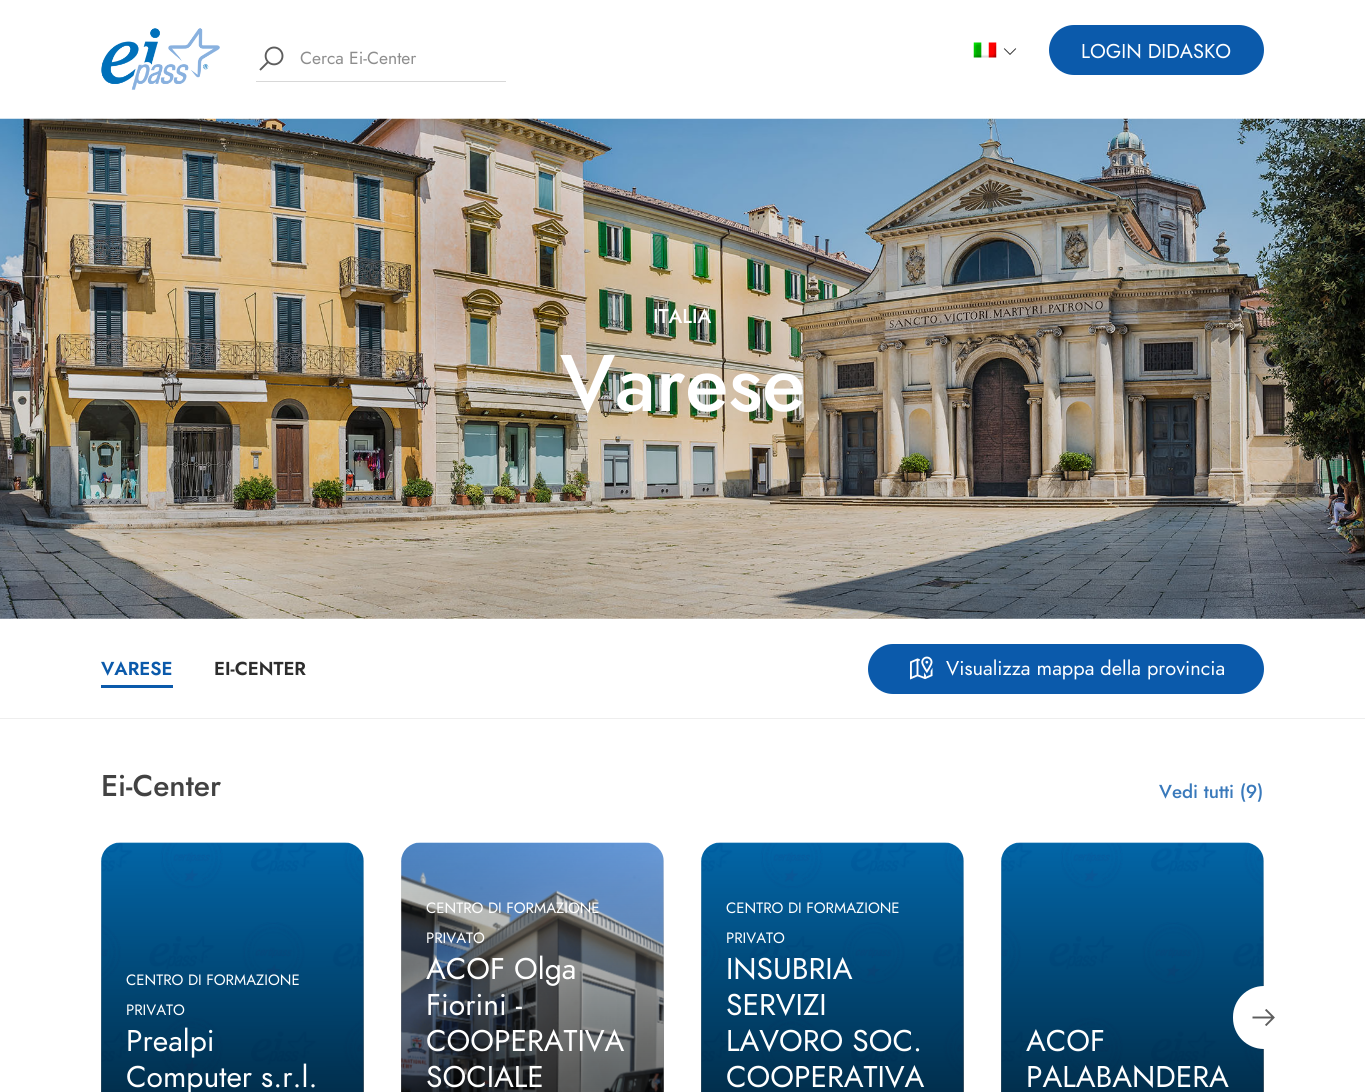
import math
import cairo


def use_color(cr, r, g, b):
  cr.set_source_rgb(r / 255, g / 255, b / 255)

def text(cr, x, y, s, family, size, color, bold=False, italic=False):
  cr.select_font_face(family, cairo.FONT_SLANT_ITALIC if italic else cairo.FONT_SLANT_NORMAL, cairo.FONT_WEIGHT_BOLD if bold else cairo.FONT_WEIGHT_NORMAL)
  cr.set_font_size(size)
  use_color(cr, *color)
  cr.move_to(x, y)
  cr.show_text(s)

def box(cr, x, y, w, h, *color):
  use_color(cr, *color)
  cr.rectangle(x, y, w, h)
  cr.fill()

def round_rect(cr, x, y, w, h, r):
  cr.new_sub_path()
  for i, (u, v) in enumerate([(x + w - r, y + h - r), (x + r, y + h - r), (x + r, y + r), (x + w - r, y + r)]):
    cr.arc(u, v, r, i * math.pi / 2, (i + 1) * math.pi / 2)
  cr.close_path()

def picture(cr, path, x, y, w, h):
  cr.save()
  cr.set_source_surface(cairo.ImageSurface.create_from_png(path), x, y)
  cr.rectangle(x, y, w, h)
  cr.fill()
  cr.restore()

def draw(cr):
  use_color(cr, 255, 255, 255)
  cr.paint()
  picture(cr, "img_01.png", 101, 28, 119, 62)
  box(cr, 256, 81, 250, 1, 216, 216, 216)
  picture(cr, "img_02.png", 259, 46, 25, 25)
  picture(cr, "img_03.png", 973, 42, 24, 16)
  picture(cr, "img_04.png", 1003, 48, 14, 7)
  use_color(cr, 11, 90, 171)
  round_rect(cr, 1049, 25, 215, 50, 25)
  cr.fill()
  picture(cr, "img_05.png", 0, 118, 1365, 501)
  box(cr, 0, 718, 1365, 1, 238, 238, 238)
  box(cr, 101, 685, 72, 3, 11, 90, 171)
  round_rect(cr, 868, 644, 396, 50, 25)
  cr.fill()
  picture(cr, "img_06.png", 910, 656, 23, 24)
  picture(cr, "img_07.png", 101, 842, 263, 250)
  gradient = cairo.LinearGradient(232, 805, 233, 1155)
  gradient.add_color_stop_rgba(0, 0, 0, 0, 0)
  gradient.add_color_stop_rgba(1, 0, 0, 0, 0.7)
  cr.set_source(gradient)
  round_rect(cr, 101, 843, 263, 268, 19)
  cr.fill()
  picture(cr, "img_08.png", 401, 842, 263, 250)
  gradient = cairo.LinearGradient(533, 805, 533, 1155)
  gradient.add_color_stop_rgba(0, 0, 0, 0, 0)
  gradient.add_color_stop_rgba(1, 0, 0, 0, 0.7)
  cr.set_source(gradient)
  round_rect(cr, 401, 843, 263, 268, 19)
  cr.fill()
  picture(cr, "img_07.png", 701, 842, 263, 250)
  gradient = cairo.LinearGradient(833, 805, 833, 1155)
  gradient.add_color_stop_rgba(0, 0, 0, 0, 0)
  gradient.add_color_stop_rgba(1, 0, 0, 0, 0.7)
  cr.set_source(gradient)
  round_rect(cr, 701, 843, 263, 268, 19)
  cr.fill()
  picture(cr, "img_09.png", 1001, 842, 263, 250)
  gradient = cairo.LinearGradient(1133, 805, 1133, 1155)
  gradient.add_color_stop_rgba(0, 0, 0, 0, 0)
  gradient.add_color_stop_rgba(1, 0, 0, 0, 0.7)
  cr.set_source(gradient)
  round_rect(cr, 1001, 843, 263, 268, 19)
  cr.fill()
  use_color(cr, 255, 255, 255)
  round_rect(cr, 1233, 986, 62, 63, 31)
  cr.fill()
  picture(cr, "img_10.png", 1252, 1009, 23, 17)
  text(cr, 300, 64, "Cerca Ei-Center", "Jost", 17.5, (141, 141, 141))
  text(cr, 1081, 58, "LOGIN DIDASKO", "Jost", 20, (255, 255, 255))
  text(cr, 653, 323, "ITALIA", "Jost Medium", 20, (255, 255, 255))
  text(cr, 560, 411, "Varese", "Jost Medium", 80, (255, 255, 255))
  text(cr, 101, 675, "VARESE", "Jost SemiBold", 18.75, (11, 90, 171))
  text(cr, 214, 675, "EI-CENTER", "Jost SemiBold", 18.75, (45, 45, 45))
  text(cr, 946, 675, "Visualizza mappa della provincia", "Jost", 20, (255, 255, 255))
  text(cr, 101, 796, "Ei-Center", "Jost Medium", 30, (66, 66, 66))
  text(cr, 1159, 798, "Vedi tutti (9)", "Jost Medium", 18.75, (57, 121, 187))
  text(cr, 126, 985, "CENTRO DI FORMAZIONE", "Jost", 15, (255, 255, 255))
  text(cr, 126, 1015, "PRIVATO", "Jost", 15, (255, 255, 255))
  text(cr, 126, 1051, "Prealpi", "Jost", 30, (255, 255, 255))
  text(cr, 126, 1087, "Computer s.r.l.", "Jost", 30, (255, 255, 255))
  text(cr, 426, 913, "CENTRO DI FORMAZIONE", "Jost", 15, (255, 255, 255))
  text(cr, 426, 943, "PRIVATO", "Jost", 15, (255, 255, 255))
  text(cr, 426, 979, "ACOF Olga", "Jost", 30, (255, 255, 255))
  text(cr, 426, 1015, "Fiorini -", "Jost", 30, (255, 255, 255))
  text(cr, 426, 1051, "COOPERATIVA", "Jost", 30, (255, 255, 255))
  text(cr, 426, 1087, "SOCIALE", "Jost", 30, (255, 255, 255))
  text(cr, 726, 913, "CENTRO DI FORMAZIONE", "Jost", 15, (255, 255, 255))
  text(cr, 726, 943, "PRIVATO", "Jost", 15, (255, 255, 255))
  text(cr, 726, 979, "INSUBRIA", "Jost", 30, (255, 255, 255))
  text(cr, 726, 1015, "SERVIZI", "Jost", 30, (255, 255, 255))
  text(cr, 726, 1051, "LAVORO SOC.", "Jost", 30, (255, 255, 255))
  text(cr, 726, 1087, "COOPERATIVA", "Jost", 30, (255, 255, 255))
  text(cr, 1026, 1051, "ACOF", "Jost", 30, (255, 255, 255))
  text(cr, 1026, 1087, "PALABANDERA", "Jost", 30, (255, 255, 255))


surface = cairo.ImageSurface(cairo.FORMAT_RGB24, 1365, 1092)
cr = cairo.Context(surface)
options = cairo.FontOptions()
options.set_hint_metrics(cairo.HINT_METRICS_OFF)
options.set_hint_style(cairo.HINT_STYLE_NONE)
cr.set_font_options(options)
cr.set_miter_limit(4)
draw(cr)
surface.write_to_png("out.png")
